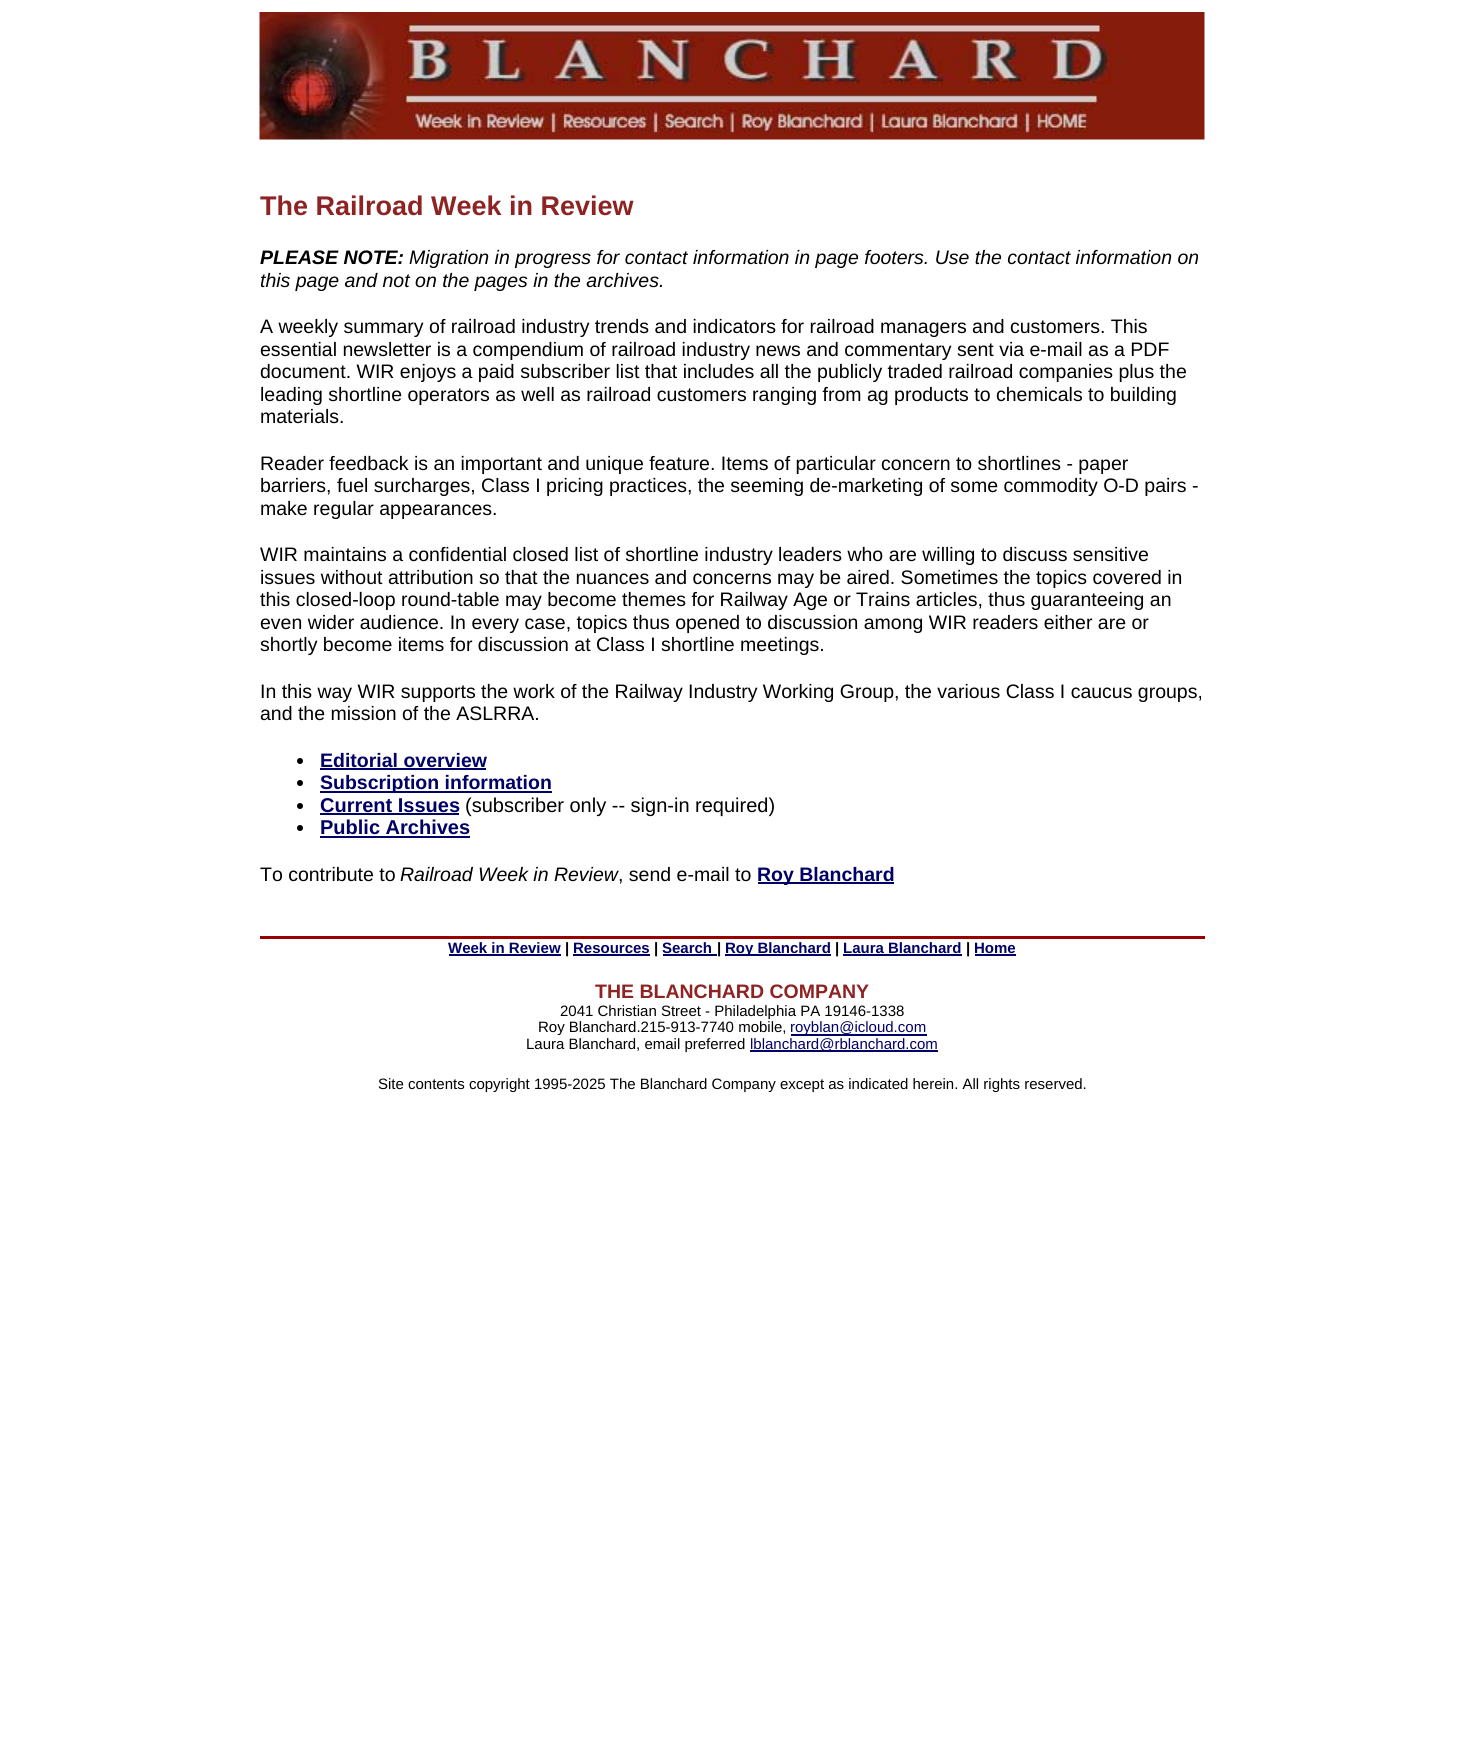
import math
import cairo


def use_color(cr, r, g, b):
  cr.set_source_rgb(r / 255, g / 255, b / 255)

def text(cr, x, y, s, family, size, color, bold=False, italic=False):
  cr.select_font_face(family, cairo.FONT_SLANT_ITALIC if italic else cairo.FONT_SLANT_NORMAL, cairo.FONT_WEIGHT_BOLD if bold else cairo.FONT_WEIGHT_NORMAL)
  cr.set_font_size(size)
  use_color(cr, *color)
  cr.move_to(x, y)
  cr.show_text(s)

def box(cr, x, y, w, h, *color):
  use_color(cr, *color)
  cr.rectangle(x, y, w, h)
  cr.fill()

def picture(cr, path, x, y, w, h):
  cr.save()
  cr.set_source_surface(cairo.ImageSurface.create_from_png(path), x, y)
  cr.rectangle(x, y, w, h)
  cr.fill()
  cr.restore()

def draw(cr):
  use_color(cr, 255, 255, 255)
  cr.paint()
  picture(cr, "img_01.png", 259, 12, 946, 128)
  use_color(cr, 0, 0, 0)
  cr.arc(300, 761, 3, 0, 2 * math.pi)
  cr.fill()
  box(cr, 320, 768, 166, 2, 0, 0, 102)
  use_color(cr, 0, 0, 0)
  cr.arc(300, 783, 3, 0, 2 * math.pi)
  cr.fill()
  box(cr, 320, 791, 232, 2, 0, 0, 102)
  use_color(cr, 0, 0, 0)
  cr.arc(300, 806, 3, 0, 2 * math.pi)
  cr.fill()
  box(cr, 320, 813, 139, 2, 0, 0, 102)
  use_color(cr, 0, 0, 0)
  cr.arc(300, 828, 3, 0, 2 * math.pi)
  cr.fill()
  box(cr, 320, 836, 150, 2, 0, 0, 102)
  box(cr, 758, 882, 136, 2, 0, 0, 102)
  box(cr, 260, 936, 945, 3, 153, 0, 0)
  box(cr, 449, 954, 112, 2, 0, 0, 102)
  box(cr, 573, 954, 77, 2, 0, 0, 102)
  box(cr, 663, 954, 54, 2, 0, 0, 102)
  box(cr, 725, 954, 106, 2, 0, 0, 102)
  box(cr, 843, 954, 119, 2, 0, 0, 102)
  box(cr, 975, 954, 41, 2, 0, 0, 102)
  box(cr, 791, 1034, 136, 2, 0, 0, 102)
  box(cr, 750, 1050, 188, 2, 0, 0, 102)
  text(cr, 260, 215, "The Railroad Week in Review", "Liberation Sans", 27, (142, 35, 35), bold=True)
  text(cr, 260, 264, "PLEASE NOTE:", "Liberation Sans", 19.5, (0, 0, 0), bold=True, italic=True)
  text(cr, 409, 264, "Migration in progress for contact information in page footers. Use the contact information on", "Liberation Sans", 19.5, (0, 0, 0), italic=True)
  text(cr, 260, 287, "this page and not on the pages in the archives.", "Liberation Sans", 19.5, (0, 0, 0), italic=True)
  text(cr, 260, 333, "A weekly summary of railroad industry trends and indicators for railroad managers and customers. This", "Liberation Sans", 19.5, (0, 0, 0))
  text(cr, 260, 356, "essential newsletter is a compendium of railroad industry news and commentary sent via e-mail as a PDF", "Liberation Sans", 19.5, (0, 0, 0))
  text(cr, 260, 378, "document. WIR enjoys a paid subscriber list that includes all the publicly traded railroad companies plus the", "Liberation Sans", 19.5, (0, 0, 0))
  text(cr, 260, 401, "leading shortline operators as well as railroad customers ranging from ag products to chemicals to building", "Liberation Sans", 19.5, (0, 0, 0))
  text(cr, 260, 423, "materials.", "Liberation Sans", 19.5, (0, 0, 0))
  text(cr, 260, 470, "Reader feedback is an important and unique feature. Items of particular concern to shortlines - paper", "Liberation Sans", 19.5, (0, 0, 0))
  text(cr, 260, 492, "barriers, fuel surcharges, Class I pricing practices, the seeming de-marketing of some commodity O-D pairs -", "Liberation Sans", 19.5, (0, 0, 0))
  text(cr, 260, 515, "make regular appearances.", "Liberation Sans", 19.5, (0, 0, 0))
  text(cr, 260, 561, "WIR maintains a confidential closed list of shortline industry leaders who are willing to discuss sensitive", "Liberation Sans", 19.5, (0, 0, 0))
  text(cr, 260, 584, "issues without attribution so that the nuances and concerns may be aired. Sometimes the topics covered in", "Liberation Sans", 19.5, (0, 0, 0))
  text(cr, 260, 606, "this closed-loop round-table may become themes for Railway Age or Trains articles, thus guaranteeing an", "Liberation Sans", 19.5, (0, 0, 0))
  text(cr, 260, 629, "even wider audience. In every case, topics thus opened to discussion among WIR readers either are or", "Liberation Sans", 19.5, (0, 0, 0))
  text(cr, 260, 651, "shortly become items for discussion at Class I shortline meetings.", "Liberation Sans", 19.5, (0, 0, 0))
  text(cr, 260, 698, "In this way WIR supports the work of the Railway Industry Working Group, the various Class I caucus groups,", "Liberation Sans", 19.5, (0, 0, 0))
  text(cr, 260, 720, "and the mission of the ASLRRA.", "Liberation Sans", 19.5, (0, 0, 0))
  text(cr, 320, 767, "Editorial overview", "Liberation Sans", 19.5, (0, 0, 102), bold=True)
  text(cr, 320, 789, "Subscription information", "Liberation Sans", 19.5, (0, 0, 102), bold=True)
  text(cr, 320, 812, "Current Issues", "Liberation Sans", 20, (0, 0, 102), bold=True)
  text(cr, 465, 812, "(subscriber only -- sign-in required)", "Liberation Sans", 20, (0, 0, 0))
  text(cr, 320, 834, "Public Archives", "Liberation Sans", 20, (0, 0, 102), bold=True)
  text(cr, 260, 881, "To contribute to", "Liberation Sans", 19.5, (0, 0, 0))
  text(cr, 400, 881, "Railroad Week in Review", "Liberation Sans", 19.5, (0, 0, 0), italic=True)
  text(cr, 618, 881, ", send e-mail to", "Liberation Sans", 19.5, (0, 0, 0))
  text(cr, 757, 881, "Roy Blanchard", "Liberation Sans", 19.5, (0, 0, 102), bold=True)
  text(cr, 448, 953, "Week in Review", "Liberation Sans", 15, (0, 0, 102), bold=True)
  text(cr, 565, 953, "|", "Liberation Sans", 15, (0, 0, 0), bold=True)
  text(cr, 573, 953, "Resources", "Liberation Sans", 15, (0, 0, 102), bold=True)
  text(cr, 654, 953, "|", "Liberation Sans", 15, (0, 0, 0), bold=True)
  text(cr, 662, 953, "Search", "Liberation Sans", 15, (0, 0, 102), bold=True)
  text(cr, 717, 953, "|", "Liberation Sans", 15, (0, 0, 0), bold=True)
  text(cr, 725, 953, "Roy Blanchard", "Liberation Sans", 15, (0, 0, 102), bold=True)
  text(cr, 835, 953, "|", "Liberation Sans", 15, (0, 0, 0), bold=True)
  text(cr, 843, 953, "Laura Blanchard", "Liberation Sans", 15, (0, 0, 102), bold=True)
  text(cr, 966, 953, "|", "Liberation Sans", 15, (0, 0, 0), bold=True)
  text(cr, 974, 953, "Home", "Liberation Sans", 15, (0, 0, 102), bold=True)
  text(cr, 595, 998, "THE BLANCHARD COMPANY", "Liberation Sans", 19.5, (142, 35, 35), bold=True)
  text(cr, 560, 1016, "2041 Christian Street - Philadelphia PA 19146-1338", "Liberation Sans", 15, (0, 0, 0))
  text(cr, 538, 1032, "Roy Blanchard.215-913-7740 mobile,", "Liberation Sans", 15, (0, 0, 0))
  text(cr, 790, 1032, "royblan@icloud.com", "Liberation Sans", 15, (0, 0, 102))
  text(cr, 526, 1049, "Laura Blanchard, email preferred", "Liberation Sans", 15, (0, 0, 0))
  text(cr, 750, 1049, "lblanchard@rblanchard.com", "Liberation Sans", 15, (0, 0, 102))
  text(cr, 378, 1089, "Site contents copyright 1995-2025 The Blanchard Company except as indicated herein. All rights reserved.", "Liberation Sans", 15, (0, 0, 0))


surface = cairo.ImageSurface(cairo.FORMAT_RGB24, 1464, 1743)
cr = cairo.Context(surface)
options = cairo.FontOptions()
options.set_hint_metrics(cairo.HINT_METRICS_OFF)
options.set_hint_style(cairo.HINT_STYLE_NONE)
cr.set_font_options(options)
cr.set_miter_limit(4)
draw(cr)
surface.write_to_png("out.png")
